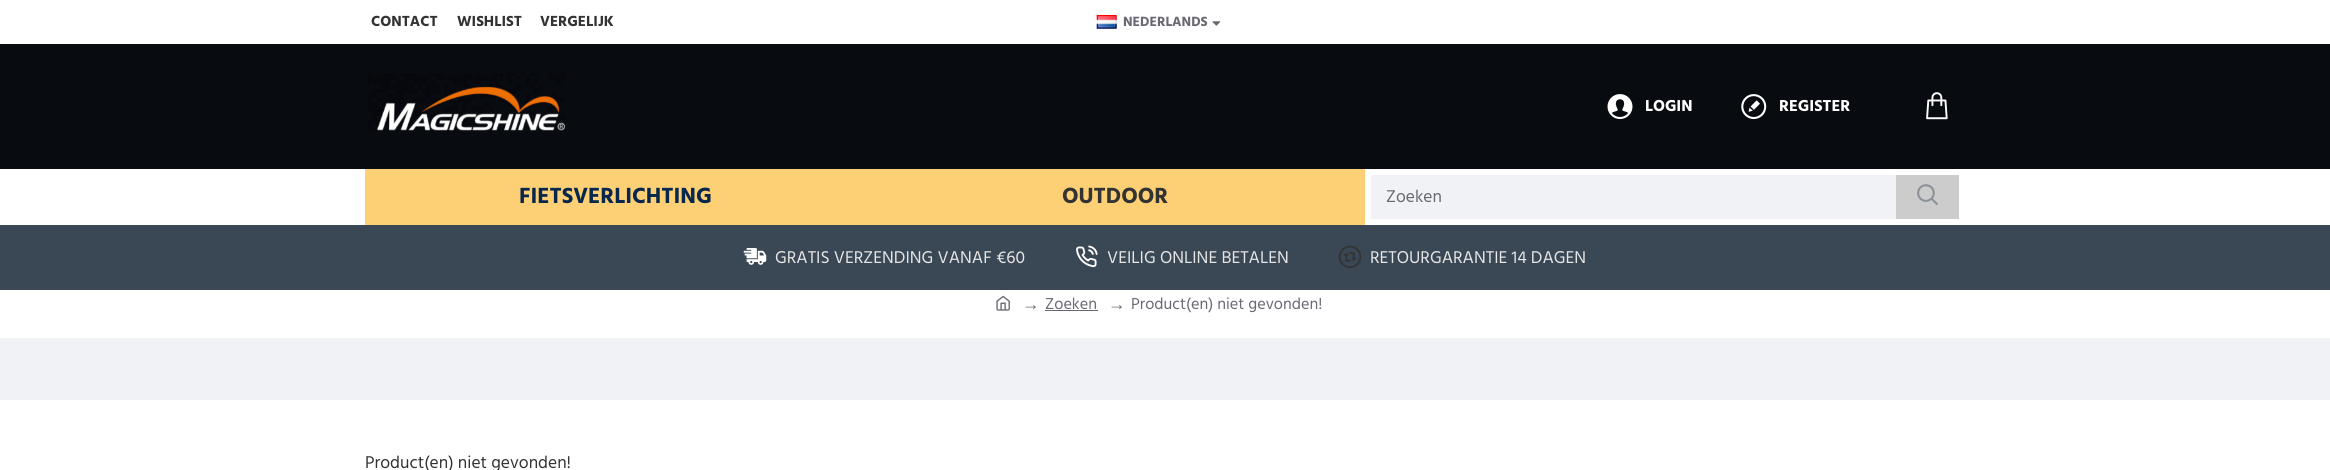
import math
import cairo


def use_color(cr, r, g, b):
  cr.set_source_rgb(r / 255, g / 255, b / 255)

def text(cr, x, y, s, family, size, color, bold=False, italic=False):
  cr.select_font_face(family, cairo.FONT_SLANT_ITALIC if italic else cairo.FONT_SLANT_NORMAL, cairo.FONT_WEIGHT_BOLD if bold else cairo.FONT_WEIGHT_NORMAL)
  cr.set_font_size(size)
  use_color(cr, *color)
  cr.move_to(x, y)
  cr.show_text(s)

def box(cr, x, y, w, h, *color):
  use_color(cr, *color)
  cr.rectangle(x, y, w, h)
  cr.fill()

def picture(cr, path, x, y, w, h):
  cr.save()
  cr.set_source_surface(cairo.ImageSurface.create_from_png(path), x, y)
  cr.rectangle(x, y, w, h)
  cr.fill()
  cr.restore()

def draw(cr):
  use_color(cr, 255, 255, 255)
  cr.paint()
  box(cr, 0, 44, 2330, 125, 8, 11, 16)
  picture(cr, "img_01.png", 1096, 15, 21, 14)
  picture(cr, "img_02.png", 1212, 21, 9, 5)
  picture(cr, "img_03.png", 368, 73, 197, 58)
  picture(cr, "img_04.png", 1607, 94, 26, 25)
  picture(cr, "img_05.png", 1741, 94, 26, 26)
  picture(cr, "img_06.png", 1926, 92, 22, 28)
  box(cr, 365, 169, 1000, 56, 254, 208, 117)
  box(cr, 1371, 175, 525, 44, 240, 242, 245)
  box(cr, 1896, 175, 63, 44, 204, 204, 204)
  picture(cr, "img_07.png", 1917, 184, 21, 21)
  box(cr, 0, 225, 2330, 65, 58, 71, 84)
  picture(cr, "img_08.png", 743, 248, 24, 17)
  picture(cr, "img_09.png", 1076, 245, 22, 23)
  picture(cr, "img_10.png", 1338, 245, 24, 23)
  picture(cr, "img_11.png", 996, 295, 14, 16)
  box(cr, 1045, 310, 53, 1, 105, 105, 115)
  box(cr, 0, 338, 2330, 62, 240, 242, 245)
  text(cr, 371, 26, "CONTACT", "Hind Madurai", 15, (51, 51, 51), bold=True)
  text(cr, 457, 26, "WISHLIST", "Hind Madurai", 15, (51, 51, 51), bold=True)
  text(cr, 540, 26, "VERGELIJK", "Hind Madurai", 15, (51, 51, 51), bold=True)
  text(cr, 1123, 26, "NEDERLANDS", "Hind Madurai", 13.75, (105, 105, 115), bold=True)
  text(cr, 1645, 111, "LOGIN", "Hind Madurai", 16.25, (255, 255, 255), bold=True)
  text(cr, 1779, 111, "REGISTER", "Hind Madurai", 16.25, (255, 255, 255), bold=True)
  text(cr, 519, 203, "FIETSVERLICHTING", "Hind Madurai", 22.5, (8, 39, 77), bold=True)
  text(cr, 1062, 203, "OUTDOOR", "Hind Madurai", 22.5, (51, 51, 51), bold=True)
  text(cr, 1386, 202, "Zoeken", "Hind Madurai", 17.5, (105, 105, 115))
  text(cr, 775, 263, "GRATIS VERZENDING VANAF €60", "Hind Madurai", 17.5, (230, 230, 230))
  text(cr, 1107, 263, "VEILIG ONLINE BETALEN", "Hind Madurai", 17.5, (230, 230, 230))
  text(cr, 1370, 263, "RETOURGARANTIE 14 DAGEN", "Hind Madurai", 17.5, (230, 230, 230))
  text(cr, 1022, 310, "→", "Liberation Serif", 17.5, (105, 105, 115))
  text(cr, 1045, 309, "Zoeken", "Hind Madurai", 16.25, (105, 105, 115))
  text(cr, 1108, 310, "→", "Liberation Serif", 17.5, (105, 105, 115))
  text(cr, 1131, 309, "Product(en) niet gevonden!", "Hind Madurai", 16.25, (105, 105, 115))
  text(cr, 365, 468, "Product(en) niet gevonden!", "Hind Madurai", 17.5, (51, 51, 51))


surface = cairo.ImageSurface(cairo.FORMAT_RGB24, 2330, 470)
cr = cairo.Context(surface)
options = cairo.FontOptions()
options.set_hint_metrics(cairo.HINT_METRICS_OFF)
options.set_hint_style(cairo.HINT_STYLE_NONE)
cr.set_font_options(options)
cr.set_miter_limit(4)
draw(cr)
surface.write_to_png("out.png")
